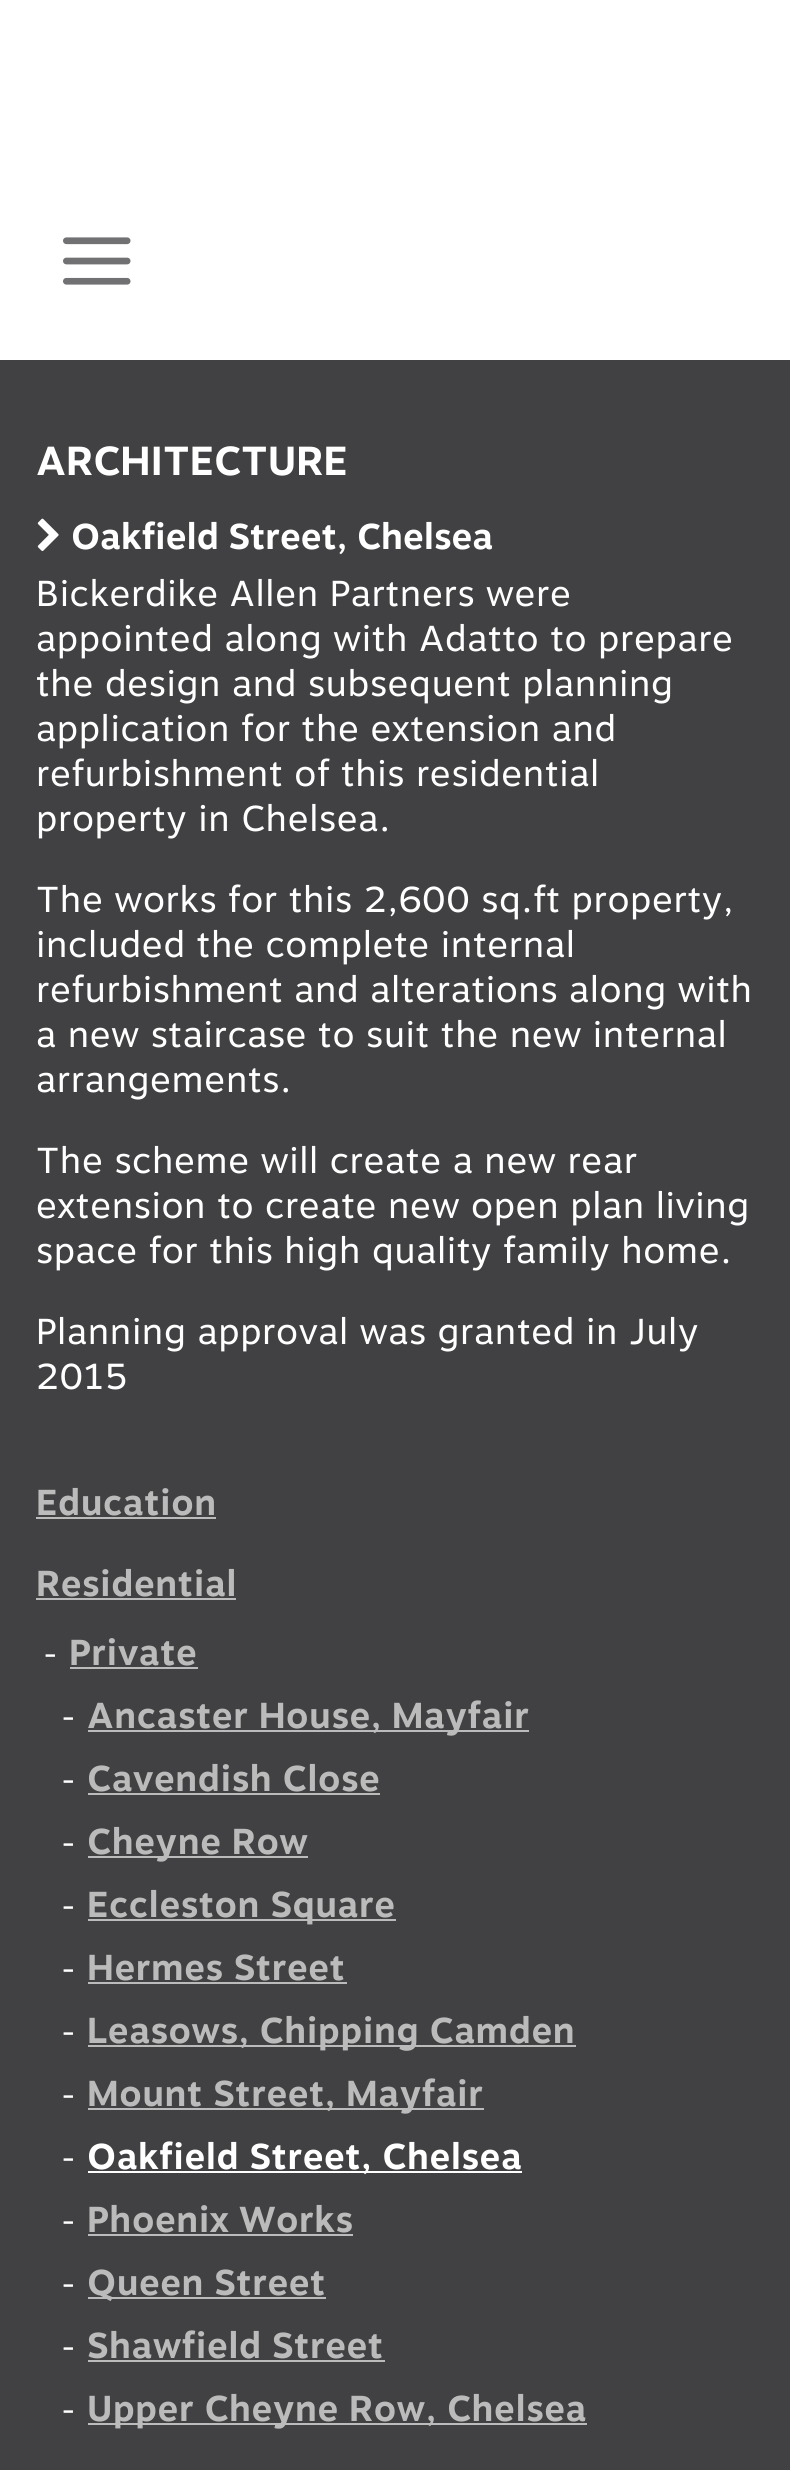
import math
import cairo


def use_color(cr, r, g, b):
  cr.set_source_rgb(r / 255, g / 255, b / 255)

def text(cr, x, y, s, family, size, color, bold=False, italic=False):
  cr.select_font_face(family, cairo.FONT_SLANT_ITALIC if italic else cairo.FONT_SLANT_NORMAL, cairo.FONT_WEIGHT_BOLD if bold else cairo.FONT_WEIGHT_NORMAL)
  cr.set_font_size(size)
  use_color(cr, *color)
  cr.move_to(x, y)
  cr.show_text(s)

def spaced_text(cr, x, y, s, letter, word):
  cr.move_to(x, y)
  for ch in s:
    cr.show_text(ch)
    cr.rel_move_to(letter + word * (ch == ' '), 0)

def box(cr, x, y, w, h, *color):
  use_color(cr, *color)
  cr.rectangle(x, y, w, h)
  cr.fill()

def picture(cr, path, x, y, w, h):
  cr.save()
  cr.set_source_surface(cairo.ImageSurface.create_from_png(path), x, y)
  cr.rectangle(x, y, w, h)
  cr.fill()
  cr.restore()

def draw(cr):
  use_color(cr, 255, 255, 255)
  cr.paint()
  picture(cr, "img_01.png", 63, 237, 68, 48)
  box(cr, 0, 360, 790, 2110, 65, 64, 66)
  picture(cr, "img_02.png", 37, 518, 22, 33)
  box(cr, 36, 1517, 180, 2, 187, 187, 187)
  box(cr, 36, 1598, 200, 2, 187, 187, 187)
  box(cr, 70, 1667, 128, 2, 187, 187, 187)
  box(cr, 88, 1730, 441, 2, 187, 187, 187)
  box(cr, 88, 1793, 292, 2, 187, 187, 187)
  box(cr, 88, 1856, 220, 2, 187, 187, 187)
  box(cr, 88, 1919, 308, 2, 187, 187, 187)
  box(cr, 88, 1982, 259, 2, 187, 187, 187)
  box(cr, 88, 2045, 488, 2, 187, 187, 187)
  box(cr, 88, 2108, 396, 2, 187, 187, 187)
  box(cr, 88, 2171, 434, 2, 255, 255, 255)
  box(cr, 88, 2234, 265, 2, 187, 187, 187)
  box(cr, 88, 2297, 238, 2, 187, 187, 187)
  box(cr, 88, 2360, 297, 2, 187, 187, 187)
  box(cr, 88, 2423, 499, 2, 187, 187, 187)
  text(cr, 36, 475, "ARCHITECTURE", "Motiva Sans", 40.5, (255, 255, 255), bold=True)
  text(cr, 71, 549, "Oakfield Street, Chelsea", "Motiva Sans", 36, (255, 255, 255), bold=True)
  cr.select_font_face("Motiva Sans")
  spaced_text(cr, 36, 606, "Bickerdike Allen Partners were", 0.55, 0)
  spaced_text(cr, 36, 651, "appointed along with Adatto to prepare", 0.55, 0)
  spaced_text(cr, 36, 696, "the design and subsequent planning", 0.55, 0)
  spaced_text(cr, 36, 741, "application for the extension and", 0.55, 0)
  spaced_text(cr, 36, 786, "refurbishment of this residential", 0.55, 0)
  spaced_text(cr, 36, 831, "property in Chelsea.", 0.55, 0)
  spaced_text(cr, 36, 912, "The works for this 2,600 sq.ft property,", 0.55, 0)
  spaced_text(cr, 36, 957, "included the complete internal", 0.55, 0)
  spaced_text(cr, 36, 1002, "refurbishment and alterations along with", 0.55, 0)
  spaced_text(cr, 36, 1047, "a new staircase to suit the new internal", 0.55, 0)
  spaced_text(cr, 36, 1092, "arrangements.", 0.55, 0)
  spaced_text(cr, 36, 1173, "The scheme will create a new rear", 0.55, 0)
  spaced_text(cr, 36, 1218, "extension to create new open plan living", 0.55, 0)
  spaced_text(cr, 36, 1263, "space for this high quality family home.", 0.55, 0)
  spaced_text(cr, 36, 1344, "Planning approval was granted in July", 0.55, 0)
  spaced_text(cr, 36, 1389, "2015", 0.55, 0)
  cr.select_font_face("Motiva Sans", cairo.FONT_SLANT_NORMAL, cairo.FONT_WEIGHT_BOLD)
  use_color(cr, 187, 187, 187)
  spaced_text(cr, 36, 1515, "Education", 0.55, 0)
  spaced_text(cr, 36, 1596, "Residential", 0.55, 0)
  cr.select_font_face("Motiva Sans")
  cr.set_font_size(32)
  use_color(cr, 255, 255, 255)
  spaced_text(cr, 43, 1665, "-", 0.55, 0)
  cr.select_font_face("Motiva Sans", cairo.FONT_SLANT_NORMAL, cairo.FONT_WEIGHT_BOLD)
  cr.set_font_size(36)
  use_color(cr, 187, 187, 187)
  spaced_text(cr, 69, 1665, "Private", 0.55, 0)
  cr.select_font_face("Motiva Sans")
  cr.set_font_size(32)
  use_color(cr, 255, 255, 255)
  spaced_text(cr, 61, 1728, "-", 0.55, 0)
  cr.select_font_face("Motiva Sans", cairo.FONT_SLANT_NORMAL, cairo.FONT_WEIGHT_BOLD)
  cr.set_font_size(36)
  use_color(cr, 187, 187, 187)
  spaced_text(cr, 87, 1728, "Ancaster House, Mayfair", 0.55, 0)
  cr.select_font_face("Motiva Sans")
  cr.set_font_size(32)
  use_color(cr, 255, 255, 255)
  spaced_text(cr, 61, 1791, "-", 0.55, 0)
  cr.select_font_face("Motiva Sans", cairo.FONT_SLANT_NORMAL, cairo.FONT_WEIGHT_BOLD)
  cr.set_font_size(36)
  use_color(cr, 187, 187, 187)
  spaced_text(cr, 87, 1791, "Cavendish Close", 0.55, 0)
  cr.select_font_face("Motiva Sans")
  cr.set_font_size(32)
  use_color(cr, 255, 255, 255)
  spaced_text(cr, 61, 1854, "-", 0.55, 0)
  cr.select_font_face("Motiva Sans", cairo.FONT_SLANT_NORMAL, cairo.FONT_WEIGHT_BOLD)
  cr.set_font_size(36)
  use_color(cr, 187, 187, 187)
  spaced_text(cr, 87, 1854, "Cheyne Row", 0.55, 0)
  cr.select_font_face("Motiva Sans")
  cr.set_font_size(32)
  use_color(cr, 255, 255, 255)
  spaced_text(cr, 61, 1917, "-", 0.55, 0)
  cr.select_font_face("Motiva Sans", cairo.FONT_SLANT_NORMAL, cairo.FONT_WEIGHT_BOLD)
  cr.set_font_size(36)
  use_color(cr, 187, 187, 187)
  spaced_text(cr, 87, 1917, "Eccleston Square", 0.55, 0)
  cr.select_font_face("Motiva Sans")
  cr.set_font_size(32)
  use_color(cr, 255, 255, 255)
  spaced_text(cr, 61, 1980, "-", 0.55, 0)
  cr.select_font_face("Motiva Sans", cairo.FONT_SLANT_NORMAL, cairo.FONT_WEIGHT_BOLD)
  cr.set_font_size(36)
  use_color(cr, 187, 187, 187)
  spaced_text(cr, 87, 1980, "Hermes Street", 0.55, 0)
  cr.select_font_face("Motiva Sans")
  cr.set_font_size(32)
  use_color(cr, 255, 255, 255)
  spaced_text(cr, 61, 2043, "-", 0.55, 0)
  cr.select_font_face("Motiva Sans", cairo.FONT_SLANT_NORMAL, cairo.FONT_WEIGHT_BOLD)
  cr.set_font_size(36)
  use_color(cr, 187, 187, 187)
  spaced_text(cr, 87, 2043, "Leasows, Chipping Camden", 0.55, 0)
  cr.select_font_face("Motiva Sans")
  cr.set_font_size(32)
  use_color(cr, 255, 255, 255)
  spaced_text(cr, 61, 2106, "-", 0.55, 0)
  cr.select_font_face("Motiva Sans", cairo.FONT_SLANT_NORMAL, cairo.FONT_WEIGHT_BOLD)
  cr.set_font_size(36)
  use_color(cr, 187, 187, 187)
  spaced_text(cr, 87, 2106, "Mount Street, Mayfair", 0.55, 0)
  cr.select_font_face("Motiva Sans")
  cr.set_font_size(32)
  use_color(cr, 255, 255, 255)
  spaced_text(cr, 61, 2169, "-", 0.55, 0)
  cr.select_font_face("Motiva Sans", cairo.FONT_SLANT_NORMAL, cairo.FONT_WEIGHT_BOLD)
  cr.set_font_size(36)
  spaced_text(cr, 87, 2169, "Oakfield Street, Chelsea", 0.55, 0)
  cr.select_font_face("Motiva Sans")
  cr.set_font_size(32)
  spaced_text(cr, 61, 2232, "-", 0.55, 0)
  cr.select_font_face("Motiva Sans", cairo.FONT_SLANT_NORMAL, cairo.FONT_WEIGHT_BOLD)
  cr.set_font_size(36)
  use_color(cr, 187, 187, 187)
  spaced_text(cr, 87, 2232, "Phoenix Works", 0.55, 0)
  cr.select_font_face("Motiva Sans")
  cr.set_font_size(32)
  use_color(cr, 255, 255, 255)
  spaced_text(cr, 61, 2295, "-", 0.55, 0)
  cr.select_font_face("Motiva Sans", cairo.FONT_SLANT_NORMAL, cairo.FONT_WEIGHT_BOLD)
  cr.set_font_size(36)
  use_color(cr, 187, 187, 187)
  spaced_text(cr, 87, 2295, "Queen Street", 0.55, 0)
  cr.select_font_face("Motiva Sans")
  cr.set_font_size(32)
  use_color(cr, 255, 255, 255)
  spaced_text(cr, 61, 2358, "-", 0.55, 0)
  cr.select_font_face("Motiva Sans", cairo.FONT_SLANT_NORMAL, cairo.FONT_WEIGHT_BOLD)
  cr.set_font_size(36)
  use_color(cr, 187, 187, 187)
  spaced_text(cr, 87, 2358, "Shawfield Street", 0.55, 0)
  cr.select_font_face("Motiva Sans")
  cr.set_font_size(32)
  use_color(cr, 255, 255, 255)
  spaced_text(cr, 61, 2421, "-", 0.55, 0)
  cr.select_font_face("Motiva Sans", cairo.FONT_SLANT_NORMAL, cairo.FONT_WEIGHT_BOLD)
  cr.set_font_size(36)
  use_color(cr, 187, 187, 187)
  spaced_text(cr, 87, 2421, "Upper Cheyne Row, Chelsea", 0.55, 0)


surface = cairo.ImageSurface(cairo.FORMAT_RGB24, 790, 2470)
cr = cairo.Context(surface)
options = cairo.FontOptions()
options.set_hint_metrics(cairo.HINT_METRICS_OFF)
options.set_hint_style(cairo.HINT_STYLE_NONE)
cr.set_font_options(options)
cr.set_miter_limit(4)
draw(cr)
surface.write_to_png("out.png")
